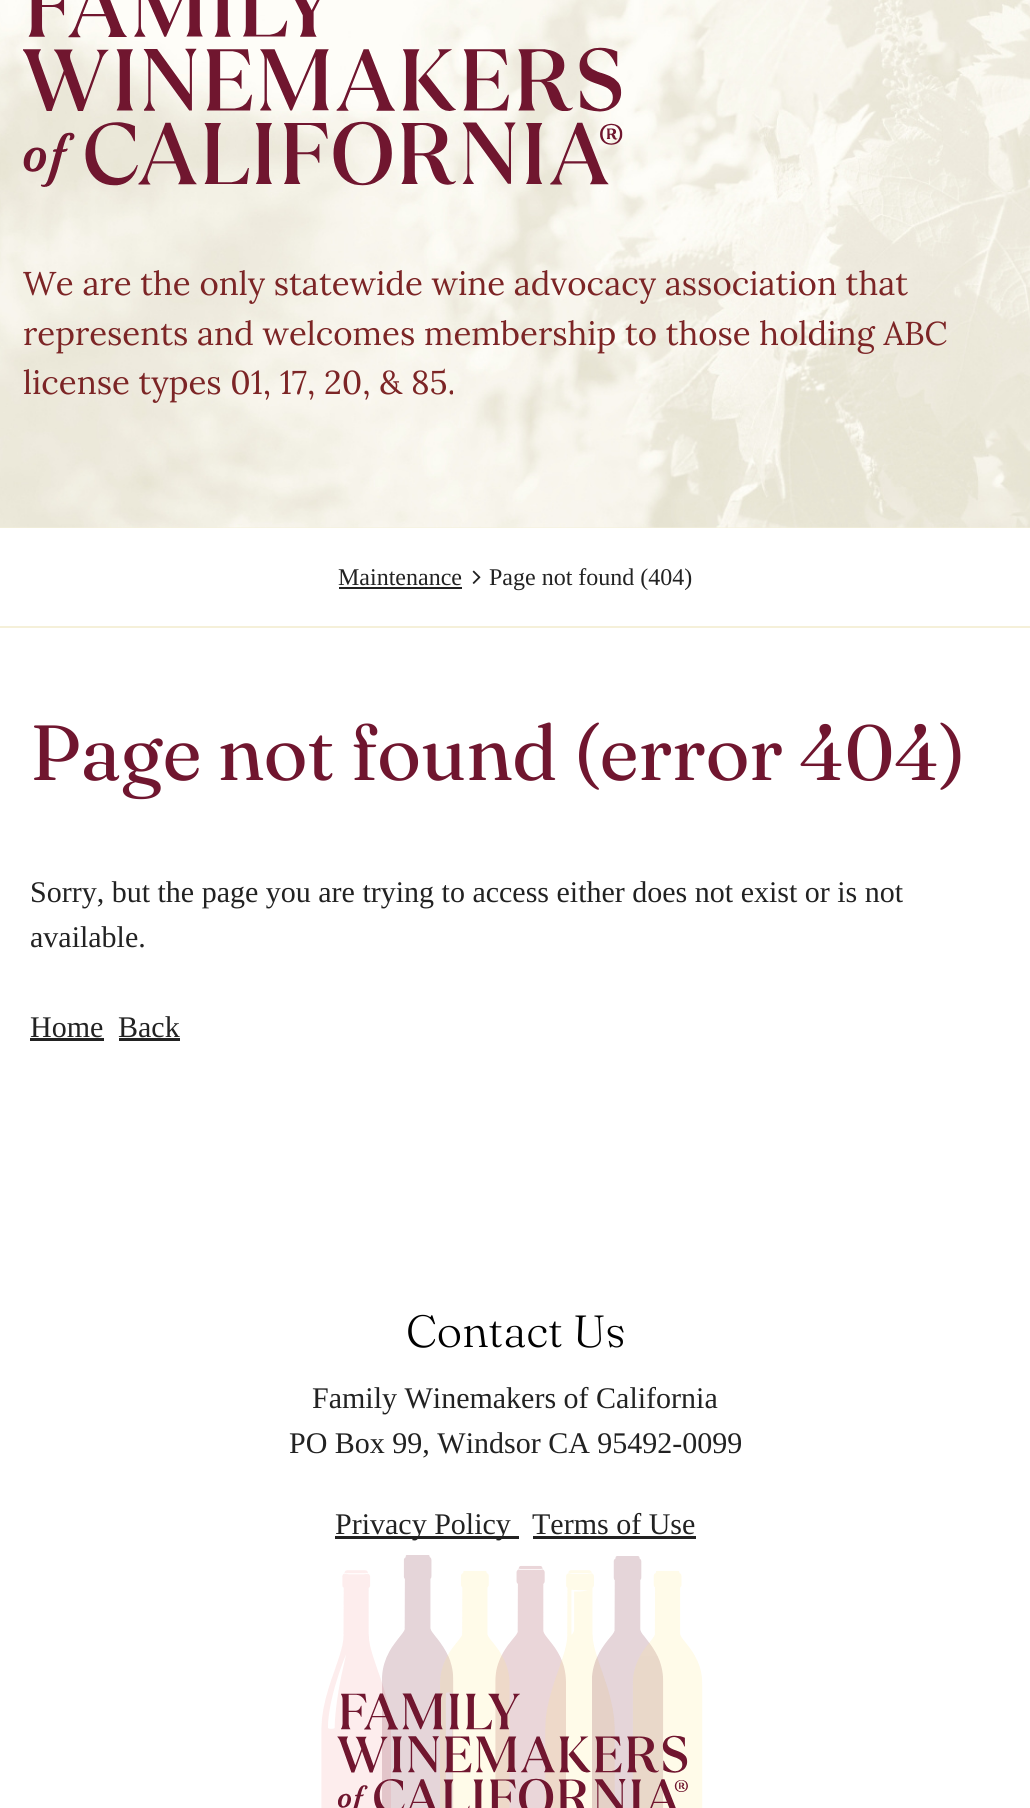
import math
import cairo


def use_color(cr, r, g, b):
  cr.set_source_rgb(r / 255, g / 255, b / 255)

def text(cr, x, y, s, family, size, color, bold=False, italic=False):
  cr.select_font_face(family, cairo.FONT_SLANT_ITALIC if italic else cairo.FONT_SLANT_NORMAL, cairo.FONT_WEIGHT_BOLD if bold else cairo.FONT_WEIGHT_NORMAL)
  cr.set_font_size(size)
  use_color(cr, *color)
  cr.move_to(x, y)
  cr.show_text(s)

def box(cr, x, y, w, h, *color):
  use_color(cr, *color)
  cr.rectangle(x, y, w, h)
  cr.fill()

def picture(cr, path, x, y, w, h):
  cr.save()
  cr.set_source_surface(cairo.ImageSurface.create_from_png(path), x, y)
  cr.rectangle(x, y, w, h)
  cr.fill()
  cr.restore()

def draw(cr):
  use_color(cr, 255, 255, 255)
  cr.paint()
  box(cr, 0, 527, 1030, 1, 245, 240, 217)
  picture(cr, "img_01.png", 0, 0, 1030, 528)
  picture(cr, "img_02.png", 23, 0, 600, 187)
  box(cr, 0, 626, 1030, 2, 245, 240, 217)
  box(cr, 339, 587, 123, 2, 34, 34, 34)
  picture(cr, "img_03.png", 472, 570, 9, 14)
  box(cr, 30, 1038, 74, 3, 34, 34, 34)
  box(cr, 119, 1038, 61, 3, 34, 34, 34)
  box(cr, 335, 1536, 184, 3, 34, 34, 34)
  box(cr, 533, 1536, 163, 3, 34, 34, 34)
  picture(cr, "img_04.png", 321, 1555, 382, 253)
  text(cr, 23, 295, "We are the only statewide wine advocacy association that", "Lora", 33, (124, 37, 38))
  text(cr, 23, 345, "represents and welcomes membership to those holding ABC", "Lora", 33, (124, 37, 38))
  text(cr, 23, 394, "license types 01, 17, 20, & 85.", "Lora", 33, (124, 37, 38))
  text(cr, 338, 585, "Maintenance", "Liberation Serif", 24, (34, 34, 34))
  text(cr, 489, 585, "Page not found (404)", "Liberation Serif", 24, (34, 34, 34))
  text(cr, 30, 780, "Page not found (error 404)", "Fraunces", 78, (112, 22, 47))
  text(cr, 30, 902, "Sorry, but the page you are trying to access either does not exist or is not", "Liberation Serif", 30, (34, 34, 34))
  text(cr, 30, 947, "available.", "Liberation Serif", 30, (34, 34, 34))
  text(cr, 30, 1037, "Home", "Liberation Serif", 30, (34, 34, 34))
  text(cr, 118, 1037, "Back", "Liberation Serif", 30, (34, 34, 34))
  text(cr, 406, 1347, "Contact Us", "Fraunces Light", 45, (0, 0, 0))
  text(cr, 312, 1408, "Family Winemakers of California", "Liberation Serif", 30, (34, 34, 34))
  text(cr, 289, 1453, "PO Box 99, Windsor CA 95492-0099", "Liberation Serif", 30, (34, 34, 34))
  text(cr, 335, 1534, "Privacy Policy", "Liberation Serif", 30, (34, 34, 34))
  text(cr, 532, 1534, "Terms of Use", "Liberation Serif", 30, (34, 34, 34))


surface = cairo.ImageSurface(cairo.FORMAT_RGB24, 1030, 1808)
cr = cairo.Context(surface)
options = cairo.FontOptions()
options.set_hint_metrics(cairo.HINT_METRICS_OFF)
options.set_hint_style(cairo.HINT_STYLE_NONE)
cr.set_font_options(options)
cr.set_miter_limit(4)
draw(cr)
surface.write_to_png("out.png")
